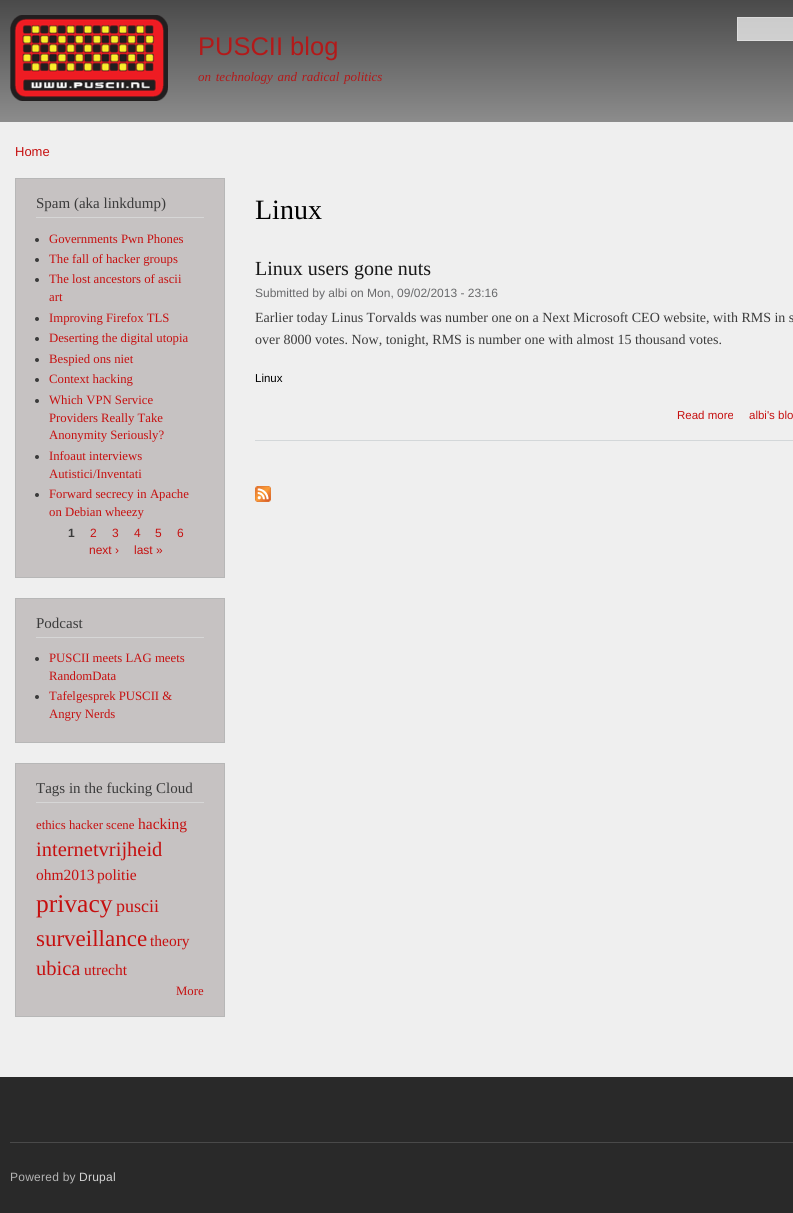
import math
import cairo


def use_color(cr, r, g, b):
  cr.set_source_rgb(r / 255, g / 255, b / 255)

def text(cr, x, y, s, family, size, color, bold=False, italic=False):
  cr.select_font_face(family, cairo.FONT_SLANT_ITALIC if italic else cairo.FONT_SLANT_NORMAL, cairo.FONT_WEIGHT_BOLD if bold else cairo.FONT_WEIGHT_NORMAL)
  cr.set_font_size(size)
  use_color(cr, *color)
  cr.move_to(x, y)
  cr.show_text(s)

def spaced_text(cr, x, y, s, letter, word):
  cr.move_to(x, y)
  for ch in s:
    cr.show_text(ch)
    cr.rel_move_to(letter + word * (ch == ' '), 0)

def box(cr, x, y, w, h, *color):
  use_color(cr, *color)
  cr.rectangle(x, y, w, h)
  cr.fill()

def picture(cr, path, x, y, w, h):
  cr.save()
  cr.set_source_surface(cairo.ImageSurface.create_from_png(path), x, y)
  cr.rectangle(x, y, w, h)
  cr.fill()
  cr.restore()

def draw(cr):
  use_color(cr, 239, 239, 239)
  cr.paint()
  gradient = cairo.LinearGradient(480, 0, 480, 122)
  gradient.add_color_stop_rgba(0, 0.29, 0.29, 0.29, 1)
  gradient.add_color_stop_rgba(1, 0.549, 0.549, 0.549, 1)
  cr.set_source(gradient)
  cr.rectangle(0, 0, 793, 122)
  cr.fill()
  gradient = cairo.LinearGradient(480, 0, 480, 122)
  gradient.add_color_stop_rgba(0, 0.788, 0.788, 0.788, 1)
  gradient.add_color_stop_rgba(1, 0.867, 0.867, 0.867, 1)
  cr.set_source(gradient)
  cr.rectangle(737, 17, 56, 24)
  cr.fill()
  picture(cr, "img_01.png", 10, 15, 158, 86)
  cr.rectangle(737.5, 17.5, 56, 23)
  cr.set_source_rgba(1, 1, 1, 0.3)
  cr.set_line_width(1)
  cr.stroke()
  use_color(cr, 198, 194, 194)
  cr.rectangle(15.5, 178.5, 209, 399)
  cr.fill_preserve()
  use_color(cr, 183, 183, 183)
  cr.stroke()
  box(cr, 36, 217, 168, 1, 214, 214, 214)
  use_color(cr, 59, 59, 59)
  cr.arc(37, 240, 2, 0, 2 * math.pi)
  cr.fill()
  cr.arc(37, 260, 2, 0, 2 * math.pi)
  cr.fill()
  cr.arc(37, 280, 2, 0, 2 * math.pi)
  cr.fill()
  cr.arc(37, 319, 2, 0, 2 * math.pi)
  cr.fill()
  cr.arc(37, 339, 2, 0, 2 * math.pi)
  cr.fill()
  cr.arc(37, 360, 2, 0, 2 * math.pi)
  cr.fill()
  cr.arc(37, 380, 2, 0, 2 * math.pi)
  cr.fill()
  cr.arc(37, 401, 2, 0, 2 * math.pi)
  cr.fill()
  cr.arc(37, 457, 2, 0, 2 * math.pi)
  cr.fill()
  cr.arc(37, 495, 2, 0, 2 * math.pi)
  cr.fill()
  use_color(cr, 198, 194, 194)
  cr.rectangle(15.5, 598.5, 209, 144)
  cr.fill_preserve()
  use_color(cr, 183, 183, 183)
  cr.stroke()
  box(cr, 36, 637, 168, 1, 214, 214, 214)
  use_color(cr, 59, 59, 59)
  cr.arc(37, 659, 2, 0, 2 * math.pi)
  cr.fill()
  cr.arc(37, 697, 2, 0, 2 * math.pi)
  cr.fill()
  use_color(cr, 198, 194, 194)
  cr.rectangle(15.5, 763.5, 209, 253)
  cr.fill_preserve()
  use_color(cr, 183, 183, 183)
  cr.stroke()
  box(cr, 36, 802, 168, 1, 214, 214, 214)
  box(cr, 255, 440, 538, 1, 211, 215, 217)
  picture(cr, "img_02.png", 255, 486, 16, 16)
  box(cr, 0, 1077, 793, 136, 41, 41, 41)
  box(cr, 10, 1142, 783, 1, 73, 73, 73)
  text(cr, 198, 55, "PUSCII blog", "Liberation Sans", 25.5, (179, 25, 25))
  cr.select_font_face("Liberation Serif", cairo.FONT_SLANT_ITALIC)
  cr.set_font_size(13)
  spaced_text(cr, 198, 81, "on technology and radical politics", 0, 1.5)
  text(cr, 15, 156, "Home", "Liberation Sans", 13, (198, 16, 16))
  text(cr, 36, 208, "Spam (aka linkdump)", "Liberation Serif", 15, (59, 59, 59))
  text(cr, 49, 243, "Governments Pwn Phones", "Liberation Serif", 12.75, (198, 16, 16))
  text(cr, 49, 263, "The fall of hacker groups", "Liberation Serif", 12.75, (198, 16, 16))
  text(cr, 49, 283, "The lost ancestors of ascii", "Liberation Serif", 12.75, (198, 16, 16))
  text(cr, 49, 301, "art", "Liberation Serif", 12.75, (198, 16, 16))
  text(cr, 49, 322, "Improving Firefox TLS", "Liberation Serif", 12.75, (198, 16, 16))
  text(cr, 49, 342, "Deserting the digital utopia", "Liberation Serif", 12.75, (198, 16, 16))
  text(cr, 49, 363, "Bespied ons niet", "Liberation Serif", 12.75, (198, 16, 16))
  text(cr, 49, 383, "Context hacking", "Liberation Serif", 12.75, (198, 16, 16))
  text(cr, 49, 404, "Which VPN Service", "Liberation Serif", 12.75, (198, 16, 16))
  text(cr, 49, 422, "Providers Really Take", "Liberation Serif", 12.75, (198, 16, 16))
  text(cr, 49, 439, "Anonymity Seriously?", "Liberation Serif", 12.75, (198, 16, 16))
  text(cr, 49, 460, "Infoaut interviews", "Liberation Serif", 12.75, (198, 16, 16))
  text(cr, 49, 478, "Autistici/Inventati", "Liberation Serif", 12.75, (198, 16, 16))
  text(cr, 49, 498, "Forward secrecy in Apache", "Liberation Serif", 12.75, (198, 16, 16))
  text(cr, 49, 516, "on Debian wheezy", "Liberation Serif", 12.75, (198, 16, 16))
  text(cr, 68, 537, "1", "Liberation Sans", 12, (59, 59, 59), bold=True)
  text(cr, 90, 537, "2", "Liberation Sans", 12, (198, 16, 16))
  text(cr, 112, 537, "3", "Liberation Sans", 12, (198, 16, 16))
  text(cr, 134, 537, "4", "Liberation Sans", 12, (198, 16, 16))
  text(cr, 155, 537, "5", "Liberation Sans", 12, (198, 16, 16))
  text(cr, 177, 537, "6", "Liberation Sans", 12, (198, 16, 16))
  text(cr, 89, 554, "next ›", "Liberation Sans", 12, (198, 16, 16))
  text(cr, 134, 554, "last »", "Liberation Sans", 12, (198, 16, 16))
  text(cr, 36, 628, "Podcast", "Liberation Serif", 15, (59, 59, 59))
  text(cr, 49, 662, "PUSCII meets LAG meets", "Liberation Serif", 12.75, (198, 16, 16))
  text(cr, 49, 680, "RandomData", "Liberation Serif", 12.75, (198, 16, 16))
  text(cr, 49, 700, "Tafelgesprek PUSCII &", "Liberation Serif", 12.75, (198, 16, 16))
  text(cr, 49, 718, "Angry Nerds", "Liberation Serif", 12.75, (198, 16, 16))
  text(cr, 36, 793, "Tags in the fucking Cloud", "Liberation Serif", 15, (59, 59, 59))
  text(cr, 36, 829, "ethics hacker scene", "Liberation Serif", 12.75, (198, 16, 16))
  text(cr, 138, 829, "hacking", "Liberation Serif", 15.5, (198, 16, 16))
  text(cr, 36, 856, "internetvrijheid", "Liberation Serif", 20.5, (198, 16, 16))
  text(cr, 36, 880, "ohm2013", "Liberation Serif", 15.5, (198, 16, 16))
  text(cr, 97, 880, "politie", "Liberation Serif", 15.5, (198, 16, 16))
  text(cr, 36, 912, "privacy", "Liberation Serif", 25.5, (198, 16, 16))
  text(cr, 116, 912, "puscii", "Liberation Serif", 18, (198, 16, 16))
  text(cr, 36, 946, "surveillance", "Liberation Serif", 23, (198, 16, 16))
  text(cr, 150, 946, "theory", "Liberation Serif", 15.5, (198, 16, 16))
  text(cr, 36, 975, "ubica", "Liberation Serif", 20.5, (198, 16, 16))
  text(cr, 84, 975, "utrecht", "Liberation Serif", 15.5, (198, 16, 16))
  text(cr, 176, 995, "More", "Liberation Serif", 12.75, (198, 16, 16))
  text(cr, 255, 219, "Linux", "Liberation Serif", 28, (0, 0, 0))
  text(cr, 255, 275, "Linux users gone nuts", "Liberation Serif", 20, (24, 24, 24))
  text(cr, 255, 297, "Submitted by albi on Mon, 09/02/2013 - 23:16", "Liberation Sans", 12, (104, 105, 107))
  text(cr, 255, 322, "Earlier today Linus Torvalds was number one on a Next Microsoft CEO website, with RMS in s", "Liberation Serif", 14, (59, 59, 59))
  text(cr, 255, 344, "over 8000 votes. Now, tonight, RMS is number one with almost 15 thousand votes.", "Liberation Serif", 14, (59, 59, 59))
  text(cr, 255, 382, "Linux", "Liberation Sans", 11.5, (0, 0, 0))
  text(cr, 677, 419, "Read more", "Liberation Sans", 11.5, (198, 16, 16))
  text(cr, 749, 419, "albi's blo", "Liberation Sans", 11.5, (198, 16, 16))
  cr.set_font_size(12)
  use_color(cr, 180, 180, 180)
  spaced_text(cr, 10, 1181, "Powered by", 0.25, 0)
  use_color(cr, 212, 212, 212)
  spaced_text(cr, 79, 1181, "Drupal", 0.25, 0)


surface = cairo.ImageSurface(cairo.FORMAT_RGB24, 793, 1213)
cr = cairo.Context(surface)
options = cairo.FontOptions()
options.set_hint_metrics(cairo.HINT_METRICS_OFF)
options.set_hint_style(cairo.HINT_STYLE_NONE)
cr.set_font_options(options)
cr.set_miter_limit(4)
draw(cr)
surface.write_to_png("out.png")
